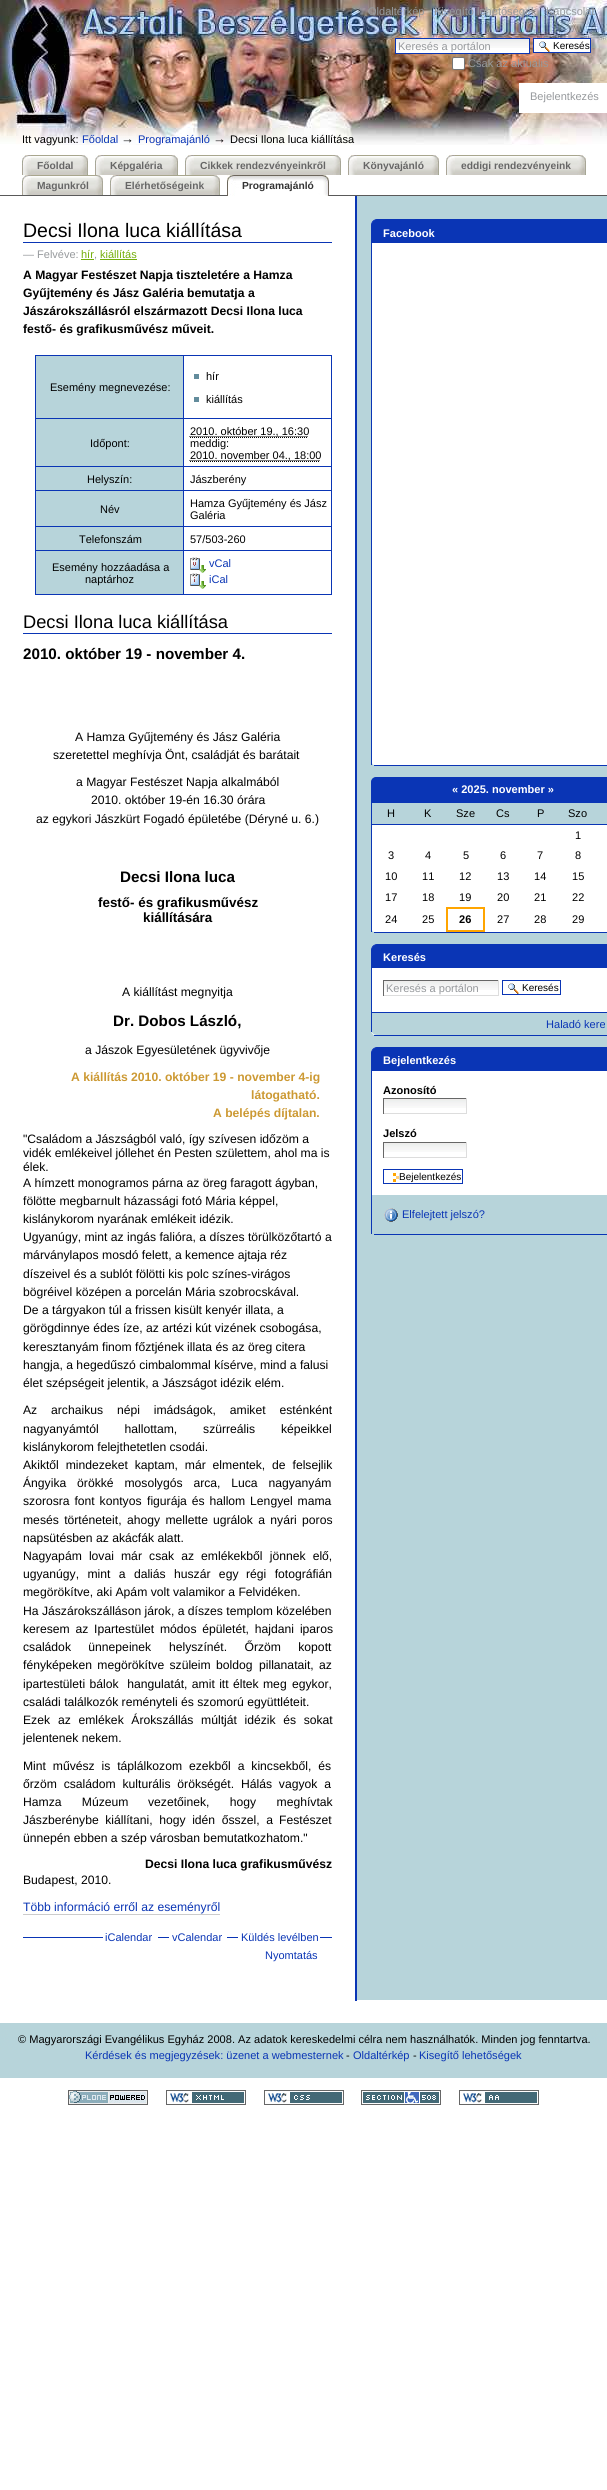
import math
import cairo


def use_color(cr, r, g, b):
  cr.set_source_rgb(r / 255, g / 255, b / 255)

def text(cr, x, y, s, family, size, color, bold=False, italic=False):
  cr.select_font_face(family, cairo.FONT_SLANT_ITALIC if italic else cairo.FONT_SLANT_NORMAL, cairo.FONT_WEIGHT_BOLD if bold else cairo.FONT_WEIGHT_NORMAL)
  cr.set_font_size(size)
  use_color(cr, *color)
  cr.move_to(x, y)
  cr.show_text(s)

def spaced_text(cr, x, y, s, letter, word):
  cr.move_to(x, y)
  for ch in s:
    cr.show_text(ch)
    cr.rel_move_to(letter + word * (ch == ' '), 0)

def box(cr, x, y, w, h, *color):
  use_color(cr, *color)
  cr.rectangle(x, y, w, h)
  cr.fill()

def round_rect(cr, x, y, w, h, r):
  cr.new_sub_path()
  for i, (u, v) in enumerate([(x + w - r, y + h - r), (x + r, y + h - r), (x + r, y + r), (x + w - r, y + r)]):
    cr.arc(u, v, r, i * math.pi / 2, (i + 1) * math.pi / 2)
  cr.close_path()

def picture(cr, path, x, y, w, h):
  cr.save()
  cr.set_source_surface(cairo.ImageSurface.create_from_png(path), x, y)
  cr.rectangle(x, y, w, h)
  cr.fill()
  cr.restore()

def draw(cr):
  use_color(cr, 255, 255, 255)
  cr.paint()
  picture(cr, "img_01.png", 0, 0, 607, 145)
  box(cr, 396, 48, 133, 5, 255, 255, 255)
  picture(cr, "img_02.png", 396, 39, 133, 9)
  cr.rectangle(395.5, 38.5, 134, 15)
  use_color(cr, 10, 53, 181)
  cr.set_line_width(1)
  cr.stroke()
  box(cr, 534, 39, 56, 13, 255, 255, 255)
  picture(cr, "img_03.png", 539, 41, 11, 11)
  cr.rectangle(533.5, 38.5, 57, 14)
  use_color(cr, 10, 53, 181)
  cr.stroke()
  use_color(cr, 255, 255, 255)
  round_rect(cr, 452.5, 57.5, 12, 12, 1.5)
  cr.fill_preserve()
  use_color(cr, 118, 118, 118)
  cr.stroke()
  box(cr, 519, 83, 88, 30, 255, 255, 255)
  box(cr, 355, 195, 2, 1806, 10, 53, 181)
  box(cr, 0, 195, 607, 1, 89, 89, 89)
  picture(cr, "img_04.png", 22, 155, 9, 20)
  picture(cr, "img_05.png", 31, 155, 57, 20)
  picture(cr, "img_04.png", 95, 155, 9, 20)
  picture(cr, "img_06.png", 104, 155, 74, 20)
  picture(cr, "img_04.png", 185, 155, 9, 20)
  picture(cr, "img_07.png", 194, 155, 147, 20)
  picture(cr, "img_04.png", 348, 155, 9, 20)
  picture(cr, "img_08.png", 357, 155, 82, 20)
  picture(cr, "img_04.png", 446, 155, 9, 20)
  picture(cr, "img_09.png", 455, 155, 131, 20)
  picture(cr, "img_04.png", 22, 175, 9, 20)
  picture(cr, "img_10.png", 31, 175, 72, 20)
  picture(cr, "img_04.png", 110, 175, 9, 20)
  picture(cr, "img_11.png", 119, 175, 101, 20)
  picture(cr, "img_12.png", 227, 175, 9, 21)
  picture(cr, "img_13.png", 236, 175, 93, 21)
  box(cr, 23, 242, 309, 1, 10, 53, 181)
  box(cr, 81, 259, 13, 1, 116, 174, 11)
  box(cr, 100, 259, 37, 1, 116, 174, 11)
  box(cr, 35, 594, 297, 1, 10, 53, 181)
  box(cr, 35, 355, 1, 240, 10, 53, 181)
  box(cr, 36, 356, 147, 62, 183, 212, 218)
  box(cr, 35, 355, 297, 1, 10, 53, 181)
  box(cr, 35, 418, 297, 1, 10, 53, 181)
  box(cr, 35, 466, 297, 1, 10, 53, 181)
  box(cr, 35, 490, 297, 1, 10, 53, 181)
  box(cr, 35, 526, 297, 1, 10, 53, 181)
  box(cr, 35, 550, 297, 1, 10, 53, 181)
  box(cr, 183, 550, 1, 45, 10, 53, 181)
  box(cr, 183, 526, 1, 25, 10, 53, 181)
  box(cr, 183, 490, 1, 37, 10, 53, 181)
  box(cr, 183, 466, 1, 25, 10, 53, 181)
  box(cr, 183, 418, 1, 49, 10, 53, 181)
  box(cr, 183, 355, 1, 64, 10, 53, 181)
  box(cr, 331, 550, 1, 45, 10, 53, 181)
  box(cr, 331, 526, 1, 25, 10, 53, 181)
  box(cr, 331, 490, 1, 37, 10, 53, 181)
  box(cr, 331, 466, 1, 25, 10, 53, 181)
  box(cr, 331, 418, 1, 49, 10, 53, 181)
  box(cr, 331, 355, 1, 64, 10, 53, 181)
  box(cr, 194, 374, 5, 5, 99, 140, 156)
  box(cr, 194, 397, 5, 5, 99, 140, 156)
  box(cr, 36, 419, 147, 47, 183, 212, 218)
  cr.new_path()
  cr.move_to(190, 437.5)
  cr.line_to(308, 437.5)
  use_color(cr, 0, 0, 0)
  cr.set_dash([1, 1])
  cr.stroke()
  cr.new_path()
  cr.move_to(189.5, 436.5)
  cr.line_to(308, 436.5)
  cr.stroke()
  cr.new_path()
  cr.move_to(190, 461.5)
  cr.line_to(320, 461.5)
  cr.stroke()
  cr.new_path()
  cr.move_to(189.5, 460.5)
  cr.line_to(320, 460.5)
  cr.stroke()
  box(cr, 36, 467, 147, 23, 183, 212, 218)
  box(cr, 36, 491, 147, 35, 183, 212, 218)
  box(cr, 36, 527, 147, 23, 183, 212, 218)
  box(cr, 36, 551, 147, 43, 183, 212, 218)
  picture(cr, "img_14.png", 190, 557, 16, 16)
  picture(cr, "img_15.png", 190, 573, 16, 16)
  box(cr, 23, 633, 309, 1, 10, 53, 181)
  box(cr, 23, 1914, 197, 1, 204, 204, 204)
  box(cr, 23, 1937, 309, 1, 10, 53, 181)
  box(cr, 103, 1937, 49, 1, 255, 255, 255)
  box(cr, 152, 1931, 6, 12, 255, 255, 255)
  box(cr, 169, 1937, 52, 1, 255, 255, 255)
  box(cr, 221, 1931, 6, 12, 255, 255, 255)
  box(cr, 238, 1937, 82, 1, 255, 255, 255)
  box(cr, 357, 196, 250, 1804, 183, 212, 218)
  use_color(cr, 255, 255, 255)
  round_rect(cr, 371, 219, 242, 547, 6)
  cr.fill()
  box(cr, 374, 765, 233, 1, 10, 53, 181)
  cr.new_path()
  cr.move_to(377, 219.5)
  cr.line_to(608, 219.5)
  cr.curve_to(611, 219.5, 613.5, 222, 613.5, 225)
  cr.line_to(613.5, 242.5)
  cr.line_to(371.5, 242.5)
  cr.line_to(371.5, 225)
  cr.curve_to(371.5, 222, 374, 219.5, 377, 219.5)
  cr.close_path()
  cr.fill_preserve()
  cr.set_dash([])
  cr.stroke()
  box(cr, 371, 243, 1, 522, 10, 53, 181)
  use_color(cr, 255, 255, 255)
  round_rect(cr, 371, 777, 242, 156, 6)
  cr.fill()
  box(cr, 374, 932, 233, 1, 10, 53, 181)
  cr.new_path()
  cr.move_to(377, 777)
  cr.line_to(607, 777)
  cr.curve_to(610.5, 777, 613, 779.5, 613, 783)
  cr.line_to(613, 802)
  cr.line_to(371, 802)
  cr.line_to(371, 783)
  cr.curve_to(371, 779.5, 373.5, 777, 377, 777)
  cr.close_path()
  cr.fill()
  cr.set_fill_rule(cairo.FILL_RULE_EVEN_ODD)
  cr.new_path()
  cr.move_to(377, 777)
  cr.line_to(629, 777)
  cr.curve_to(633, 777, 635, 779, 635, 783)
  cr.line_to(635, 802)
  cr.line_to(371, 802)
  cr.line_to(371, 783)
  cr.curve_to(371, 779, 373, 777, 377, 777)
  cr.close_path()
  cr.move_to(377, 778)
  cr.line_to(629, 778)
  cr.curve_to(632, 778, 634, 780, 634, 783)
  cr.line_to(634, 802)
  cr.line_to(372, 802)
  cr.line_to(372, 783)
  cr.curve_to(372, 780, 374, 778, 377, 778)
  cr.close_path()
  cr.fill()
  box(cr, 371, 802, 1, 130, 10, 53, 181)
  box(cr, 372, 802, 235, 1, 10, 53, 181)
  box(cr, 372, 824, 235, 1, 10, 53, 181)
  box(cr, 372, 803, 235, 21, 183, 212, 218)
  box(cr, 446, 907, 39, 2, 255, 165, 0)
  box(cr, 483, 907, 2, 25, 255, 165, 0)
  box(cr, 446, 930, 39, 2, 255, 165, 0)
  box(cr, 446, 907, 2, 25, 255, 165, 0)
  use_color(cr, 255, 255, 255)
  round_rect(cr, 371, 944, 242, 92, 6)
  cr.fill()
  box(cr, 374, 1035, 233, 1, 10, 53, 181)
  cr.new_path()
  cr.move_to(377, 944.5)
  cr.line_to(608, 944.5)
  cr.curve_to(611, 944.5, 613.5, 947, 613.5, 950)
  cr.line_to(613.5, 967.5)
  cr.line_to(371.5, 967.5)
  cr.line_to(371.5, 950)
  cr.curve_to(371.5, 947, 374, 944.5, 377, 944.5)
  cr.close_path()
  cr.fill_preserve()
  cr.stroke()
  box(cr, 371, 968, 1, 44, 10, 53, 181)
  picture(cr, "img_16.png", 384, 981, 114, 9)
  box(cr, 383, 980, 116, 1, 102, 102, 102)
  box(cr, 498, 980, 1, 16, 221, 221, 221)
  box(cr, 383, 995, 116, 1, 221, 221, 221)
  box(cr, 383, 980, 1, 16, 102, 102, 102)
  picture(cr, "img_03.png", 508, 983, 11, 11)
  cr.rectangle(502.5, 980.5, 58, 14)
  use_color(cr, 10, 53, 181)
  cr.stroke()
  use_color(cr, 183, 212, 218)
  cr.new_path()
  cr.move_to(371, 1012)
  cr.line_to(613, 1012)
  cr.line_to(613, 1029)
  cr.curve_to(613, 1032.5, 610.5, 1035, 607, 1035)
  cr.line_to(377, 1035)
  cr.curve_to(373.5, 1035, 371, 1032.5, 371, 1029)
  cr.close_path()
  cr.fill()
  box(cr, 371, 1012, 236, 1, 10, 53, 181)
  box(cr, 371, 1012, 1, 20, 10, 53, 181)
  use_color(cr, 255, 255, 255)
  round_rect(cr, 371, 1047, 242, 188, 6)
  cr.fill()
  box(cr, 374, 1234, 233, 1, 10, 53, 181)
  cr.new_path()
  cr.move_to(377, 1047.5)
  cr.line_to(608, 1047.5)
  cr.curve_to(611, 1047.5, 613.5, 1050, 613.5, 1053)
  cr.line_to(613.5, 1070.5)
  cr.line_to(371.5, 1070.5)
  cr.line_to(371.5, 1053)
  cr.curve_to(371.5, 1050, 374, 1047.5, 377, 1047.5)
  cr.close_path()
  cr.fill_preserve()
  cr.stroke()
  box(cr, 371, 1071, 1, 163, 10, 53, 181)
  picture(cr, "img_17.png", 384, 1099, 82, 9)
  box(cr, 383, 1098, 84, 1, 102, 102, 102)
  box(cr, 466, 1098, 1, 16, 221, 221, 221)
  box(cr, 383, 1113, 84, 1, 221, 221, 221)
  box(cr, 383, 1098, 1, 16, 102, 102, 102)
  picture(cr, "img_17.png", 384, 1143, 82, 9)
  box(cr, 383, 1142, 84, 1, 102, 102, 102)
  box(cr, 466, 1142, 1, 16, 221, 221, 221)
  box(cr, 383, 1157, 84, 1, 221, 221, 221)
  box(cr, 383, 1142, 1, 16, 102, 102, 102)
  picture(cr, "img_18.png", 393, 1173, 6, 9)
  cr.rectangle(383.5, 1169.5, 79, 14)
  use_color(cr, 10, 53, 181)
  cr.stroke()
  box(cr, 372, 1195, 235, 39, 183, 212, 218)
  picture(cr, "img_19.png", 384, 1208, 14, 14)
  box(cr, 0, 2023, 607, 55, 183, 212, 218)
  picture(cr, "img_20.png", 68, 2090, 80, 15)
  picture(cr, "img_21.png", 166, 2090, 80, 15)
  picture(cr, "img_22.png", 264, 2090, 80, 15)
  picture(cr, "img_23.png", 361, 2090, 80, 15)
  picture(cr, "img_24.png", 459, 2090, 80, 15)
  text(cr, 368, 15, "Oldaltérkép", "Liberation Sans", 11.05, (150, 153, 156))
  text(cr, 434, 15, "Kisegítő lehetőségek", "Liberation Sans", 11.05, (150, 153, 156))
  text(cr, 546, 15, "Kapcsolat", "Liberation Sans", 11.05, (150, 153, 156))
  text(cr, 398, 50, "Keresés a portálon", "Liberation Sans", 11.05, (150, 153, 156))
  text(cr, 553, 49, "Keresés", "Liberation Sans", 10, (0, 0, 0))
  text(cr, 468, 67, "Csak az aktuális", "Liberation Sans", 11.05, (150, 153, 156))
  text(cr, 530, 100, "Bejelentkezés", "Liberation Sans", 11.05, (150, 153, 156))
  text(cr, 22, 143, "Itt vagyunk:", "Liberation Sans", 11.05, (0, 0, 0))
  text(cr, 82, 143, "Főoldal", "Liberation Sans", 11.05, (10, 53, 181))
  text(cr, 121, 143, "→", "Liberation Sans", 13, (0, 0, 0))
  text(cr, 138, 143, "Programajánló", "Liberation Sans", 11.05, (10, 53, 181))
  text(cr, 213, 143, "→", "Liberation Sans", 13, (0, 0, 0))
  text(cr, 230, 143, "Decsi Ilona luca kiállítása", "Liberation Sans", 11.05, (0, 0, 0))
  text(cr, 37, 169, "Főoldal", "Liberation Sans", 10.25, (102, 102, 102), bold=True)
  text(cr, 110, 169, "Képgaléria", "Liberation Sans", 10.25, (102, 102, 102), bold=True)
  text(cr, 200, 169, "Cikkek rendezvényeinkről", "Liberation Sans", 10.25, (102, 102, 102), bold=True)
  text(cr, 363, 169, "Könyvajánló", "Liberation Sans", 10.25, (102, 102, 102), bold=True)
  text(cr, 461, 169, "eddigi rendezvényeink", "Liberation Sans", 10.25, (102, 102, 102), bold=True)
  text(cr, 37, 189, "Magunkról", "Liberation Sans", 10.25, (102, 102, 102), bold=True)
  text(cr, 125, 189, "Elérhetőségeink", "Liberation Sans", 10.25, (102, 102, 102), bold=True)
  text(cr, 242, 189, "Programajánló", "Liberation Sans", 10.25, (51, 51, 51), bold=True)
  text(cr, 23, 237, "Decsi Ilona luca kiállítása", "Liberation Sans", 19.5, (0, 0, 0))
  text(cr, 23, 258, "— Felvéve:", "Liberation Sans", 11, (150, 153, 156))
  text(cr, 81, 258, "hír", "Liberation Sans", 11, (116, 174, 11))
  text(cr, 94, 258, ",", "Liberation Sans", 11, (150, 153, 156))
  text(cr, 100, 258, "kiállítás", "Liberation Sans", 11, (116, 174, 11))
  text(cr, 23, 279, "A Magyar Festészet Napja tiszteletére a Hamza", "Liberation Sans", 12.15, (0, 0, 0), bold=True)
  text(cr, 23, 297, "Gyűjtemény és Jász Galéria bemutatja a", "Liberation Sans", 12.15, (0, 0, 0), bold=True)
  text(cr, 23, 315, "Jászárokszállásról elszármazott Decsi Ilona luca", "Liberation Sans", 12.15, (0, 0, 0), bold=True)
  text(cr, 23, 333, "festő- és grafikusművész műveit.", "Liberation Sans", 12.15, (0, 0, 0), bold=True)
  text(cr, 50, 391, "Esemény megnevezése:", "Liberation Sans", 11, (0, 0, 0))
  text(cr, 206, 380, "hír", "Liberation Sans", 11, (0, 0, 0))
  text(cr, 206, 403, "kiállítás", "Liberation Sans", 11, (0, 0, 0))
  text(cr, 90, 447, "Időpont:", "Liberation Sans", 11, (0, 0, 0))
  text(cr, 190, 435, "2010. október 19., 16:30", "Liberation Sans", 11, (0, 0, 0))
  text(cr, 190, 447, "meddig:", "Liberation Sans", 11, (0, 0, 0))
  text(cr, 190, 459, "2010. november 04., 18:00", "Liberation Sans", 11, (0, 0, 0))
  text(cr, 87, 483, "Helyszín:", "Liberation Sans", 11, (0, 0, 0))
  text(cr, 190, 483, "Jászberény", "Liberation Sans", 11, (0, 0, 0))
  text(cr, 100, 513, "Név", "Liberation Sans", 11, (0, 0, 0))
  text(cr, 190, 507, "Hamza Gyűjtemény és Jász", "Liberation Sans", 11, (0, 0, 0))
  text(cr, 190, 519, "Galéria", "Liberation Sans", 11, (0, 0, 0))
  text(cr, 79, 543, "Telefonszám", "Liberation Sans", 11, (0, 0, 0))
  text(cr, 190, 543, "57/503-260", "Liberation Sans", 11, (0, 0, 0))
  text(cr, 52, 571, "Esemény hozzáadása a", "Liberation Sans", 11, (0, 0, 0))
  text(cr, 85, 583, "naptárhoz", "Liberation Sans", 11, (0, 0, 0))
  text(cr, 209, 567, "vCal", "Liberation Sans", 11, (10, 53, 181))
  text(cr, 209, 583, "iCal", "Liberation Sans", 11, (10, 53, 181))
  text(cr, 23, 628, "Decsi Ilona luca kiállítása", "Liberation Sans", 18.25, (0, 0, 0))
  text(cr, 23, 659, "2010. október 19 - november 4.", "Liberation Sans", 15.2, (0, 0, 0), bold=True)
  text(cr, 75, 741, "A Hamza Gyűjtemény és Jász Galéria", "Liberation Sans", 12.15, (0, 0, 0))
  text(cr, 53, 759, "szeretettel meghívja Önt, családját és barátait", "Liberation Sans", 12.15, (0, 0, 0))
  text(cr, 76, 786, "a Magyar Festészet Napja alkalmából", "Liberation Sans", 12.15, (0, 0, 0))
  text(cr, 91, 804, "2010. október 19-én 16.30 órára", "Liberation Sans", 12.15, (0, 0, 0))
  text(cr, 36, 823, "az egykori Jászkürt Fogadó épületébe (Déryné u. 6.)", "Liberation Sans", 12.15, (0, 0, 0))
  text(cr, 120, 882, "Decsi Ilona luca", "Liberation Sans", 15.2, (0, 0, 0), bold=True)
  text(cr, 98, 907, "festő- és grafikusművész", "Liberation Sans", 13.4, (0, 0, 0), bold=True)
  text(cr, 143, 922, "kiállítására", "Liberation Sans", 13.4, (0, 0, 0), bold=True)
  text(cr, 122, 996, "A kiállítást megnyitja", "Liberation Sans", 12.15, (0, 0, 0))
  text(cr, 113, 1026, "Dr. Dobos László,", "Liberation Sans", 15.2, (0, 0, 0), bold=True)
  text(cr, 85, 1054, "a Jászok Egyesületének ügyvivője", "Liberation Sans", 12.15, (0, 0, 0))
  text(cr, 71, 1081, "A kiállítás 2010. október 19 - november 4-ig", "Liberation Sans", 12.15, (204, 153, 51), bold=True)
  text(cr, 251, 1099, "látogatható.", "Liberation Sans", 12.15, (204, 153, 51), bold=True)
  text(cr, 213, 1117, "A belépés díjtalan.", "Liberation Sans", 12.15, (204, 153, 51), bold=True)
  text(cr, 23, 1143, "\"Családom a Jászságból való, így szívesen időzöm a", "Liberation Sans", 12.15, (0, 0, 0))
  text(cr, 23, 1157, "vidék emlékeivel jóllehet én Pesten születtem, ahol ma is", "Liberation Sans", 12.15, (0, 0, 0))
  text(cr, 23, 1171, "élek.", "Liberation Sans", 12.15, (0, 0, 0))
  text(cr, 23, 1187, "A hímzett monogramos párna az öreg faragott ágyban,", "Liberation Sans", 12.15, (0, 0, 0))
  text(cr, 23, 1205, "fölötte megbarnult házassági fotó Mária képpel,", "Liberation Sans", 12.15, (0, 0, 0))
  text(cr, 23, 1223, "kislánykorom nyarának emlékeit idézik.", "Liberation Sans", 12.15, (0, 0, 0))
  text(cr, 23, 1241, "Ugyanúgy, mint az ingás falióra, a díszes törülközőtartó a", "Liberation Sans", 12.15, (0, 0, 0))
  text(cr, 23, 1259, "márványlapos mosdó felett, a kemence ajtaja réz", "Liberation Sans", 12.15, (0, 0, 0))
  text(cr, 23, 1278, "díszeivel és a sublót fölötti kis polc", "Liberation Sans", 12.15, (0, 0, 0))
  text(cr, 212, 1278, "színes-virágos", "Liberation Sans", 12.15, (0, 0, 0))
  text(cr, 23, 1296, "bögréivel középen a porcelán Mária szobrocskával.", "Liberation Sans", 12.15, (0, 0, 0))
  text(cr, 23, 1314, "De a tárgyakon túl a frissen kisült kenyér illata, a", "Liberation Sans", 12.15, (0, 0, 0))
  text(cr, 23, 1332, "görögdinnye édes íze, az artézi kút vizének csobogása,", "Liberation Sans", 12.15, (0, 0, 0))
  text(cr, 23, 1351, "keresztanyám finom főztjének illata és az öreg citera", "Liberation Sans", 12.15, (0, 0, 0))
  text(cr, 23, 1369, "hangja, a hegedűszó cimbalommal kísérve, mind a falusi", "Liberation Sans", 12.15, (0, 0, 0))
  text(cr, 23, 1387, "élet szépségeit jelentik, a Jászságot idézik elém.", "Liberation Sans", 12.15, (0, 0, 0))
  spaced_text(cr, 23, 1414, "Az archaikus népi imádságok, amiket esténként", 0, 10.5)
  spaced_text(cr, 23, 1433, "nagyanyámtól hallottam, szürreális képeikkel", 0, 22.5)
  text(cr, 23, 1451, "kislánykorom felejthetetlen csodái.", "Liberation Sans", 12.15, (0, 0, 0))
  spaced_text(cr, 23, 1469, "Akiktől mindezeket kaptam, már elmentek, de felsejlik", 0, 3.5)
  spaced_text(cr, 23, 1487, "Ángyika örökké mosolygós arca, Luca nagyanyám", 0, 7.5)
  spaced_text(cr, 23, 1505, "szorosra font kontyos", 0, 1.5)
  spaced_text(cr, 147, 1505, "figurája és hallom Lengyel mama", 0, 1.5)
  spaced_text(cr, 23, 1524, "mesés történeteit, ahogy mellette", 0, 2)
  spaced_text(cr, 213, 1524, "ugrálok a nyári poros", 0, 2)
  text(cr, 23, 1542, "napsütésben az akácfák alatt.", "Liberation Sans", 12.15, (0, 0, 0))
  spaced_text(cr, 23, 1560, "Nagyapám lovai", 0, 3.75)
  spaced_text(cr, 121, 1560, "már csak az emlékekből jönnek elő,", 0, 3.75)
  spaced_text(cr, 23, 1578, "ugyanúgy, mint a daliás huszár egy", 0, 5)
  spaced_text(cr, 246, 1578, "régi fotográfián", 0, 5)
  text(cr, 23, 1596, "megörökítve, aki Apám volt valamikor a Felvidéken.", "Liberation Sans", 12.15, (0, 0, 0))
  text(cr, 23, 1615, "Ha Jászárokszálláson járok, a díszes templom közelében", "Liberation Sans", 12.15, (0, 0, 0))
  spaced_text(cr, 23, 1633, "keresem az", 0, 2.5)
  spaced_text(cr, 94, 1633, "Ipartestület módos épületét, hajdani iparos", 0, 2.5)
  spaced_text(cr, 23, 1651, "családok ünnepeinek", 0, 14)
  spaced_text(cr, 169, 1651, "helyszínét. Őrzöm kopott", 0, 14)
  spaced_text(cr, 23, 1669, "fényképeken megörökítve szüleim boldog", 0, 2)
  spaced_text(cr, 259, 1669, "pillanatait, az", 0, 2)
  spaced_text(cr, 23, 1688, "ipartestületi bálok  hangulatát, amit itt éltek meg", 0, 1)
  text(cr, 292, 1688, "egykor,", "Liberation Sans", 12.15, (0, 0, 0))
  text(cr, 23, 1706, "családi találkozók reményteli és szomorú együttléteit.", "Liberation Sans", 12.15, (0, 0, 0))
  text(cr, 23, 1724, "Ezek", "Liberation Sans", 12.15, (0, 0, 0))
  spaced_text(cr, 58, 1724, "az emlékek Árokszállás múltját idézik és sokat", 0, 4.25)
  text(cr, 23, 1742, "jelentenek nekem.", "Liberation Sans", 12.15, (0, 0, 0))
  spaced_text(cr, 23, 1770, "Mint művész is táplálkozom ezekből a kincsekből, és", 0, 3.5)
  spaced_text(cr, 23, 1788, "őrzöm családom kulturális örökségét. Hálás vagyok a", 0, 3.5)
  spaced_text(cr, 23, 1806, "Hamza Múzeum", 0, 17)
  spaced_text(cr, 148, 1806, "vezetőinek, hogy meghívtak", 0, 17)
  spaced_text(cr, 23, 1824, "Jászberénybe kiállítani, hogy idén ősszel, a", 0, 3.25)
  text(cr, 279, 1824, "Festészet", "Liberation Sans", 12.15, (0, 0, 0))
  text(cr, 23, 1842, "ünnepén ebben a szép városban bemutatkozhatom.\"", "Liberation Sans", 12.15, (0, 0, 0))
  text(cr, 145, 1868, "Decsi Ilona luca grafikusművész", "Liberation Sans", 12.15, (0, 0, 0), bold=True)
  text(cr, 23, 1884, "Budapest, 2010.", "Liberation Sans", 12.15, (0, 0, 0))
  text(cr, 23, 1911, "Több információ erről az eseményről", "Liberation Sans", 12.15, (10, 53, 181))
  text(cr, 105, 1941, "iCalendar", "Liberation Sans", 11, (10, 53, 181))
  text(cr, 172, 1941, "vCalendar", "Liberation Sans", 11, (10, 53, 181))
  text(cr, 241, 1941, "Küldés levélben", "Liberation Sans", 11, (10, 53, 181))
  text(cr, 265, 1959, "Nyomtatás", "Liberation Sans", 11, (10, 53, 181))
  text(cr, 383, 237, "Facebook", "Liberation Sans", 11.05, (255, 255, 255), bold=True)
  text(cr, 452, 793, "« 2025. november »", "Liberation Sans", 11.05, (255, 255, 255), bold=True)
  text(cr, 387, 817, "H", "Liberation Sans", 11.05, (0, 0, 0))
  text(cr, 424, 817, "K", "Liberation Sans", 11.05, (0, 0, 0))
  text(cr, 456, 817, "Sze", "Liberation Sans", 11.05, (0, 0, 0))
  text(cr, 496, 817, "Cs", "Liberation Sans", 11.05, (0, 0, 0))
  text(cr, 537, 817, "P", "Liberation Sans", 11.05, (0, 0, 0))
  text(cr, 568, 817, "Szo", "Liberation Sans", 11.05, (0, 0, 0))
  text(cr, 575, 839, "1", "Liberation Sans", 11.05, (0, 0, 0))
  text(cr, 388, 859, "3", "Liberation Sans", 11.05, (0, 0, 0))
  text(cr, 425, 859, "4", "Liberation Sans", 11.05, (0, 0, 0))
  text(cr, 463, 859, "5", "Liberation Sans", 11.05, (0, 0, 0))
  text(cr, 500, 859, "6", "Liberation Sans", 11.05, (0, 0, 0))
  text(cr, 537, 859, "7", "Liberation Sans", 11.05, (0, 0, 0))
  text(cr, 575, 859, "8", "Liberation Sans", 11.05, (0, 0, 0))
  text(cr, 385, 880, "10", "Liberation Sans", 11.05, (0, 0, 0))
  text(cr, 422, 880, "11", "Liberation Sans", 11.05, (0, 0, 0))
  text(cr, 459, 880, "12", "Liberation Sans", 11.05, (0, 0, 0))
  text(cr, 497, 880, "13", "Liberation Sans", 11.05, (0, 0, 0))
  text(cr, 534, 880, "14", "Liberation Sans", 11.05, (0, 0, 0))
  text(cr, 572, 880, "15", "Liberation Sans", 11.05, (0, 0, 0))
  text(cr, 385, 901, "17", "Liberation Sans", 11.05, (0, 0, 0))
  text(cr, 422, 901, "18", "Liberation Sans", 11.05, (0, 0, 0))
  text(cr, 459, 901, "19", "Liberation Sans", 11.05, (0, 0, 0))
  text(cr, 497, 901, "20", "Liberation Sans", 11.05, (0, 0, 0))
  text(cr, 534, 901, "21", "Liberation Sans", 11.05, (0, 0, 0))
  text(cr, 572, 901, "22", "Liberation Sans", 11.05, (0, 0, 0))
  text(cr, 385, 923, "24", "Liberation Sans", 11.05, (0, 0, 0))
  text(cr, 422, 923, "25", "Liberation Sans", 11.05, (0, 0, 0))
  text(cr, 459, 923, "26", "Liberation Sans", 11.05, (0, 0, 0), bold=True)
  text(cr, 497, 923, "27", "Liberation Sans", 11.05, (0, 0, 0))
  text(cr, 534, 923, "28", "Liberation Sans", 11.05, (0, 0, 0))
  text(cr, 572, 923, "29", "Liberation Sans", 11.05, (0, 0, 0))
  text(cr, 383, 961, "Keresés", "Liberation Sans", 11.05, (255, 255, 255), bold=True)
  text(cr, 386, 992, "Keresés a portálon", "Liberation Sans", 11.05, (150, 153, 156))
  text(cr, 522, 991, "Keresés", "Liberation Sans", 10, (0, 0, 0))
  text(cr, 546, 1028, "Haladó kere", "Liberation Sans", 11.05, (10, 53, 181))
  text(cr, 383, 1064, "Bejelentkezés", "Liberation Sans", 11.05, (255, 255, 255), bold=True)
  text(cr, 383, 1094, "Azonosító", "Liberation Sans", 11.05, (0, 0, 0), bold=True)
  text(cr, 383, 1137, "Jelszó", "Liberation Sans", 11.05, (0, 0, 0), bold=True)
  text(cr, 399, 1180, "Bejelentkezés", "Liberation Sans", 10, (0, 0, 0))
  text(cr, 402, 1218, "Elfelejtett jelszó?", "Liberation Sans", 11.05, (10, 53, 181))
  text(cr, 18, 2043, "© Magyarországi Evangélikus Egyház 2008. Az adatok kereskedelmi célra nem használhatók. Minden jog fenntartva.", "Liberation Sans", 11.05, (0, 0, 0))
  text(cr, 85, 2059, "Kérdések és megjegyzések: üzenet a webmesternek", "Liberation Sans", 11.05, (10, 53, 181))
  text(cr, 346, 2059, "-", "Liberation Sans", 11.05, (0, 0, 0))
  text(cr, 353, 2059, "Oldaltérkép", "Liberation Sans", 11.05, (10, 53, 181))
  text(cr, 413, 2059, "-", "Liberation Sans", 11.05, (0, 0, 0))
  text(cr, 419, 2059, "Kisegítő lehetőségek", "Liberation Sans", 11.05, (10, 53, 181))


surface = cairo.ImageSurface(cairo.FORMAT_RGB24, 607, 2490)
cr = cairo.Context(surface)
options = cairo.FontOptions()
options.set_hint_metrics(cairo.HINT_METRICS_OFF)
options.set_hint_style(cairo.HINT_STYLE_NONE)
cr.set_font_options(options)
cr.set_miter_limit(4)
draw(cr)
surface.write_to_png("out.png")
